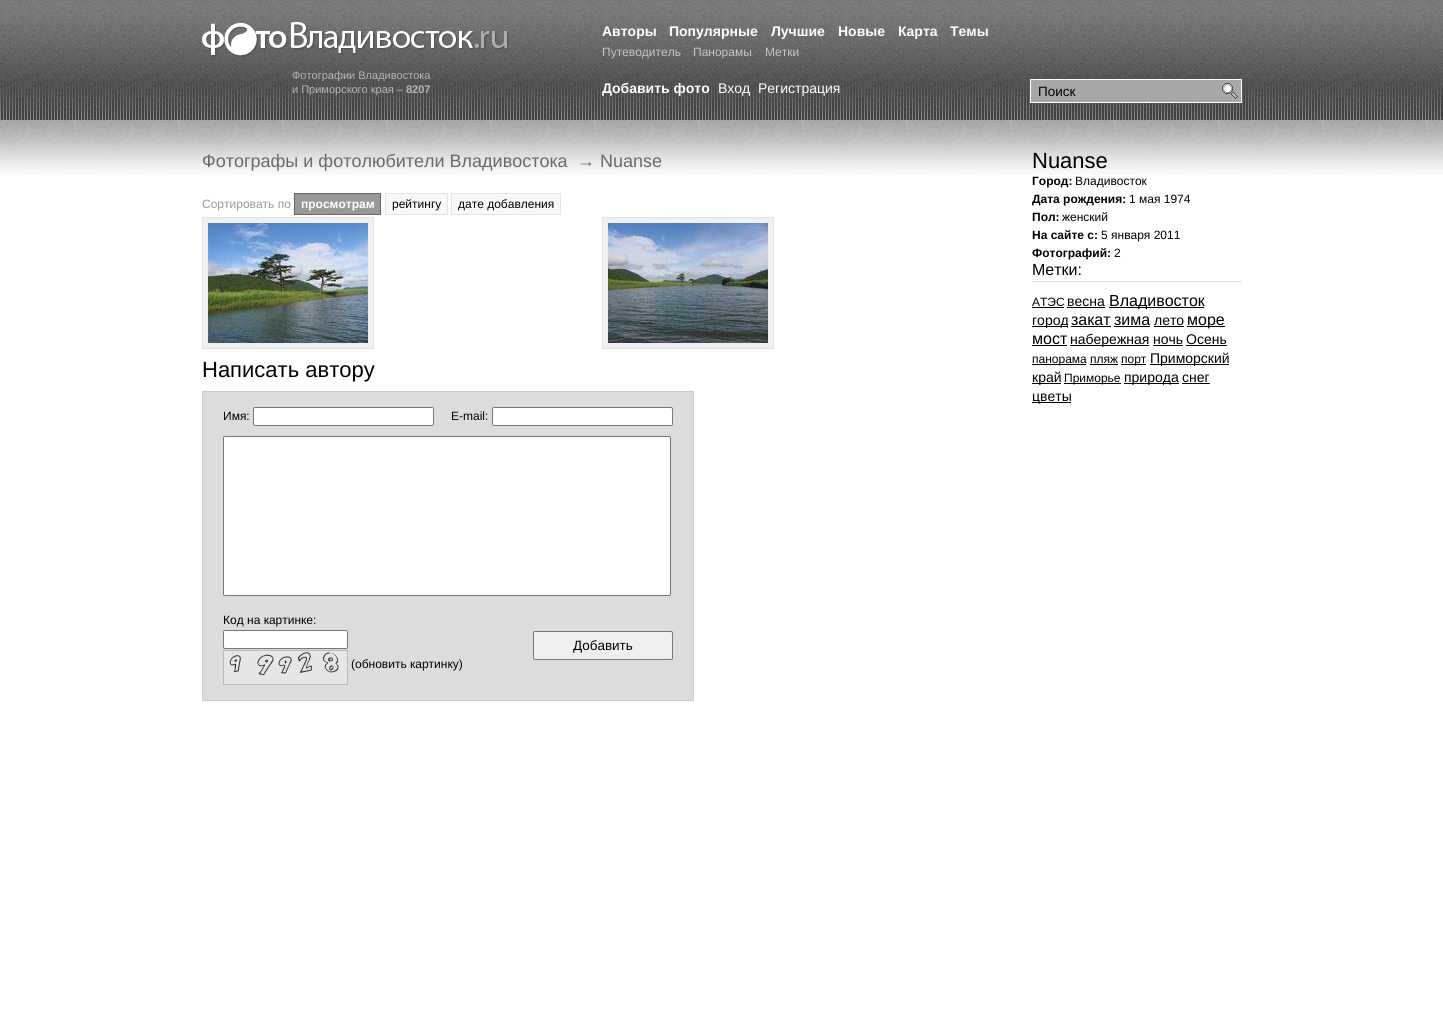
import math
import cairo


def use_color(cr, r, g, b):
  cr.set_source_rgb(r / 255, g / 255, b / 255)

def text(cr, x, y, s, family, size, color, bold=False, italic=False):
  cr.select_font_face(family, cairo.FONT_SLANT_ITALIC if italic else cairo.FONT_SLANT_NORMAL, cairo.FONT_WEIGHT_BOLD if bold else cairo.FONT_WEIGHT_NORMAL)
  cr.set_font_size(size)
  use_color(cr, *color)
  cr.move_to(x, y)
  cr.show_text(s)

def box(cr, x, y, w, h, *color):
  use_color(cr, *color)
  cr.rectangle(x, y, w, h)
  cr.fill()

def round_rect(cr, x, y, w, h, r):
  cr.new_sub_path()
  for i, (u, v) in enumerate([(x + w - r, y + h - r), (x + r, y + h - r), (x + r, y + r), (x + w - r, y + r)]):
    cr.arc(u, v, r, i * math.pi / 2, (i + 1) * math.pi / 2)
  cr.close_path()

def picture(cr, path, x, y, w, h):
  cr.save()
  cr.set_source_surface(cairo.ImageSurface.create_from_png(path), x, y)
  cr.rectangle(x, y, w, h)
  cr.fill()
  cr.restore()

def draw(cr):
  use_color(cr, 255, 255, 255)
  cr.paint()
  picture(cr, "img_01.png", 0, 0, 1443, 120)
  picture(cr, "img_02.png", 202, 22, 307, 35)
  cr.rectangle(1030.5, 79.5, 211, 23)
  use_color(cr, 255, 255, 255)
  cr.set_line_width(1)
  cr.stroke()
  box(cr, 1031, 80, 210, 22, 168, 168, 168)
  picture(cr, "img_03.png", 1222, 83, 16, 16)
  picture(cr, "img_04.png", 0, 120, 1443, 55)
  use_color(cr, 153, 153, 153)
  cr.rectangle(294.5, 193.5, 86, 21)
  cr.fill_preserve()
  use_color(cr, 102, 102, 102)
  cr.stroke()
  use_color(cr, 248, 248, 248)
  cr.rectangle(385.5, 193.5, 62, 21)
  cr.fill_preserve()
  use_color(cr, 227, 227, 227)
  cr.stroke()
  use_color(cr, 248, 248, 248)
  cr.rectangle(451.5, 193.5, 109, 21)
  cr.fill_preserve()
  use_color(cr, 227, 227, 227)
  cr.stroke()
  use_color(cr, 240, 240, 240)
  cr.rectangle(202.5, 217.5, 171, 131)
  cr.fill_preserve()
  use_color(cr, 227, 227, 227)
  cr.stroke()
  picture(cr, "img_05.png", 208, 223, 160, 120)
  use_color(cr, 240, 240, 240)
  cr.rectangle(602.5, 217.5, 171, 131)
  cr.fill_preserve()
  use_color(cr, 227, 227, 227)
  cr.stroke()
  picture(cr, "img_06.png", 608, 223, 160, 120)
  use_color(cr, 220, 220, 220)
  cr.rectangle(202.5, 391.5, 491, 309)
  cr.fill_preserve()
  use_color(cr, 204, 204, 204)
  cr.stroke()
  use_color(cr, 255, 255, 255)
  round_rect(cr, 253.5, 407.5, 180, 18, 1.5)
  cr.fill_preserve()
  use_color(cr, 118, 118, 118)
  cr.stroke()
  use_color(cr, 255, 255, 255)
  round_rect(cr, 492.5, 407.5, 180, 18, 1.5)
  cr.fill_preserve()
  use_color(cr, 118, 118, 118)
  cr.stroke()
  use_color(cr, 255, 255, 255)
  round_rect(cr, 223.5, 436.5, 447, 159, 1.5)
  cr.fill_preserve()
  use_color(cr, 118, 118, 118)
  cr.stroke()
  use_color(cr, 255, 255, 255)
  round_rect(cr, 223.5, 630.5, 124, 18, 1.5)
  cr.fill_preserve()
  use_color(cr, 118, 118, 118)
  cr.stroke()
  picture(cr, "img_07.png", 223, 650, 125, 35)
  use_color(cr, 239, 239, 239)
  round_rect(cr, 533.5, 631.5, 139, 28, 1.5)
  cr.fill_preserve()
  use_color(cr, 118, 118, 118)
  cr.stroke()
  box(cr, 1032, 281, 210, 1, 227, 227, 227)
  box(cr, 1032, 307, 32, 1, 0, 0, 0)
  box(cr, 1067, 307, 38, 1, 0, 0, 0)
  box(cr, 1109, 307, 95, 1, 0, 0, 0)
  box(cr, 1032, 326, 36, 1, 0, 0, 0)
  box(cr, 1071, 326, 40, 1, 0, 0, 0)
  box(cr, 1114, 326, 36, 1, 0, 0, 0)
  box(cr, 1154, 326, 30, 1, 0, 0, 0)
  box(cr, 1187, 326, 38, 1, 0, 0, 0)
  box(cr, 1032, 345, 35, 1, 0, 0, 0)
  box(cr, 1070, 345, 79, 1, 0, 0, 0)
  box(cr, 1153, 345, 30, 1, 0, 0, 0)
  box(cr, 1186, 345, 41, 1, 0, 0, 0)
  box(cr, 1032, 364, 54, 1, 0, 0, 0)
  box(cr, 1121, 364, 25, 1, 0, 0, 0)
  box(cr, 1150, 364, 79, 1, 0, 0, 0)
  box(cr, 1090, 364, 28, 1, 0, 0, 0)
  box(cr, 1032, 383, 29, 1, 0, 0, 0)
  box(cr, 1064, 383, 57, 1, 0, 0, 0)
  box(cr, 1124, 383, 55, 1, 0, 0, 0)
  box(cr, 1182, 383, 28, 1, 0, 0, 0)
  box(cr, 1032, 402, 39, 1, 0, 0, 0)
  text(cr, 292, 79, "Фотографии Владивостока", "Liberation Sans", 11, (183, 183, 183))
  text(cr, 292, 93, "и Приморского края –", "Liberation Sans", 11, (183, 183, 183))
  text(cr, 406, 93, "8207", "Liberation Sans", 11, (183, 183, 183), bold=True)
  text(cr, 602, 36, "Авторы", "Liberation Sans", 14, (255, 255, 255), bold=True)
  text(cr, 669, 36, "Популярные", "Liberation Sans", 14, (255, 255, 255), bold=True)
  text(cr, 771, 36, "Лучшие", "Liberation Sans", 14, (255, 255, 255), bold=True)
  text(cr, 838, 36, "Новые", "Liberation Sans", 14, (255, 255, 255), bold=True)
  text(cr, 898, 36, "Карта", "Liberation Sans", 14, (255, 255, 255), bold=True)
  text(cr, 950, 36, "Темы", "Liberation Sans", 14, (255, 255, 255), bold=True)
  text(cr, 602, 56, "Путеводитель", "Liberation Sans", 12, (198, 198, 198))
  text(cr, 693, 56, "Панорамы", "Liberation Sans", 12, (198, 198, 198))
  text(cr, 765, 56, "Метки", "Liberation Sans", 12, (198, 198, 198))
  text(cr, 602, 93, "Добавить фото", "Liberation Sans", 14, (255, 255, 255), bold=True)
  text(cr, 718, 93, "Вход", "Liberation Sans", 14, (255, 255, 255))
  text(cr, 758, 93, "Регистрация", "Liberation Sans", 14, (255, 255, 255))
  text(cr, 1038, 96, "Поиск", "Liberation Sans", 13.5, (0, 0, 0))
  text(cr, 202, 167, "Фотографы и фотолюбители Владивостока", "Liberation Sans", 18, (105, 105, 105))
  text(cr, 577, 167, "→ Nuanse", "Liberation Sans", 18, (105, 105, 105))
  text(cr, 202, 208, "Сортировать по", "Liberation Sans", 12, (153, 153, 153))
  text(cr, 301, 208, "просмотрам", "Liberation Sans", 12, (255, 255, 255), bold=True)
  text(cr, 392, 208, "рейтингу", "Liberation Sans", 12, (0, 0, 0))
  text(cr, 458, 208, "дате добавления", "Liberation Sans", 12, (0, 0, 0))
  text(cr, 202, 377, "Написать автору", "Liberation Sans", 22, (0, 0, 0))
  text(cr, 223, 420, "Имя:", "Liberation Sans", 12, (0, 0, 0))
  text(cr, 451, 420, "E-mail:", "Liberation Sans", 12, (0, 0, 0))
  text(cr, 223, 624, "Код на картинке:", "Liberation Sans", 12, (0, 0, 0))
  text(cr, 351, 668, "(обновить картинку)", "Liberation Sans", 12, (0, 0, 0))
  text(cr, 573, 650, "Добавить", "Liberation Sans", 13.5, (0, 0, 0))
  text(cr, 1032, 168, "Nuanse", "Liberation Sans", 22, (0, 0, 0))
  text(cr, 1032, 185, "Город:", "Liberation Sans", 12, (0, 0, 0), bold=True)
  text(cr, 1075, 185, "Владивосток", "Liberation Sans", 12, (0, 0, 0))
  text(cr, 1032, 203, "Дата рождения:", "Liberation Sans", 12, (0, 0, 0), bold=True)
  text(cr, 1129, 203, "1 мая 1974", "Liberation Sans", 12, (0, 0, 0))
  text(cr, 1032, 221, "Пол:", "Liberation Sans", 12, (0, 0, 0), bold=True)
  text(cr, 1062, 221, "женский", "Liberation Sans", 12, (0, 0, 0))
  text(cr, 1032, 239, "На сайте с:", "Liberation Sans", 12, (0, 0, 0), bold=True)
  text(cr, 1101, 239, "5 января 2011", "Liberation Sans", 12, (0, 0, 0))
  text(cr, 1032, 257, "Фотографий:", "Liberation Sans", 12, (0, 0, 0), bold=True)
  text(cr, 1114, 257, "2", "Liberation Sans", 12, (0, 0, 0))
  text(cr, 1032, 275, "Метки:", "Liberation Sans", 16, (0, 0, 0))
  text(cr, 1032, 306, "АТЭС", "Liberation Sans", 12, (0, 0, 0))
  text(cr, 1067, 306, "весна", "Liberation Sans", 14, (0, 0, 0))
  text(cr, 1109, 306, "Владивосток", "Liberation Sans", 16, (0, 0, 0))
  text(cr, 1032, 325, "город", "Liberation Sans", 14, (0, 0, 0))
  text(cr, 1071, 325, "закат", "Liberation Sans", 16, (0, 0, 0))
  text(cr, 1114, 325, "зима", "Liberation Sans", 16, (0, 0, 0))
  text(cr, 1154, 325, "лето", "Liberation Sans", 14, (0, 0, 0))
  text(cr, 1187, 325, "море", "Liberation Sans", 16, (0, 0, 0))
  text(cr, 1032, 344, "мост", "Liberation Sans", 16, (0, 0, 0))
  text(cr, 1070, 344, "набережная", "Liberation Sans", 14, (0, 0, 0))
  text(cr, 1153, 344, "ночь", "Liberation Sans", 14, (0, 0, 0))
  text(cr, 1186, 344, "Осень", "Liberation Sans", 14, (0, 0, 0))
  text(cr, 1032, 363, "панорама пляж", "Liberation Sans", 12, (0, 0, 0))
  text(cr, 1121, 363, "порт", "Liberation Sans", 12, (0, 0, 0))
  text(cr, 1150, 363, "Приморский", "Liberation Sans", 14, (0, 0, 0))
  text(cr, 1032, 382, "край", "Liberation Sans", 14, (0, 0, 0))
  text(cr, 1064, 382, "Приморье", "Liberation Sans", 12, (0, 0, 0))
  text(cr, 1124, 382, "природа", "Liberation Sans", 14, (0, 0, 0))
  text(cr, 1182, 382, "снег", "Liberation Sans", 14, (0, 0, 0))
  text(cr, 1032, 401, "цветы", "Liberation Sans", 14, (0, 0, 0))


surface = cairo.ImageSurface(cairo.FORMAT_RGB24, 1443, 1036)
cr = cairo.Context(surface)
options = cairo.FontOptions()
options.set_hint_metrics(cairo.HINT_METRICS_OFF)
options.set_hint_style(cairo.HINT_STYLE_NONE)
cr.set_font_options(options)
cr.set_miter_limit(4)
draw(cr)
surface.write_to_png("out.png")
